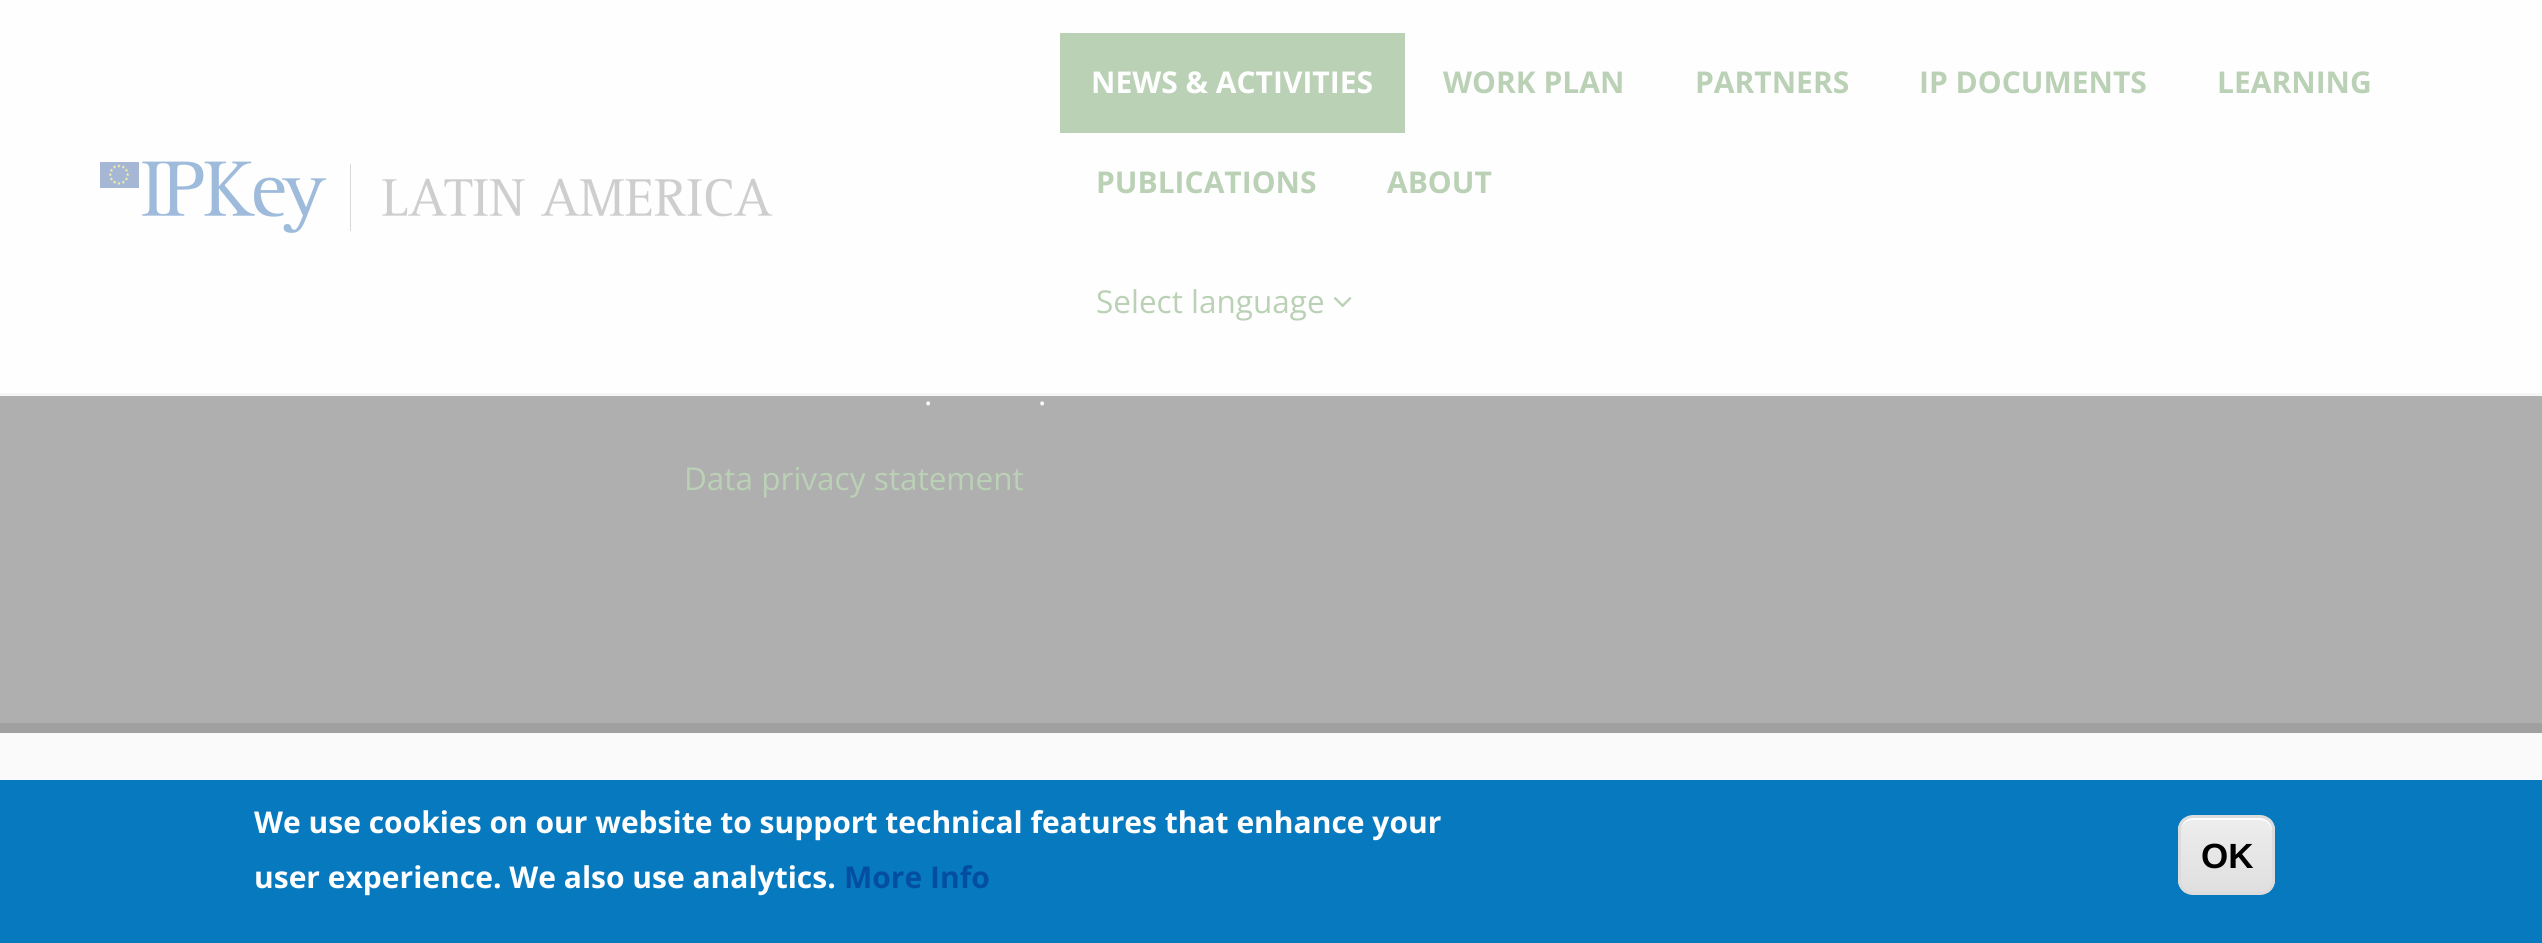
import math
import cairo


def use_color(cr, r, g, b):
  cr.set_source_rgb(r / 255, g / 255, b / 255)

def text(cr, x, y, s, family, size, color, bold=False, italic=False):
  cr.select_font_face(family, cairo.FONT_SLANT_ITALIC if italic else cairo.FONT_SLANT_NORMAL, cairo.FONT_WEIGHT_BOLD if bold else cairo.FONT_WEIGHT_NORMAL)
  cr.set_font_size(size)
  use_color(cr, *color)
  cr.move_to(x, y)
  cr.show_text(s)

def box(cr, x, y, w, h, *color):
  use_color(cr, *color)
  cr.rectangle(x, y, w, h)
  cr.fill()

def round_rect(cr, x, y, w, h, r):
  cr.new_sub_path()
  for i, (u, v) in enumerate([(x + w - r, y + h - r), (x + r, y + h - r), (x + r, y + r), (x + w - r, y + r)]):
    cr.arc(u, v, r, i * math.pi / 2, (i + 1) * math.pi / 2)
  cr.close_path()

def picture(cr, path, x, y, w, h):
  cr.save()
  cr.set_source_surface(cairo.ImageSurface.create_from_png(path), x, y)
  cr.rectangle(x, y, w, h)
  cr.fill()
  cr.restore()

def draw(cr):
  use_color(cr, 175, 175, 175)
  cr.paint()
  box(cr, 0, 0, 2542, 393, 254, 254, 254)
  box(cr, 0, 393, 2542, 3, 246, 246, 246)
  picture(cr, "img_01.png", 100, 161, 673, 72)
  box(cr, 1060, 33, 345, 100, 186, 209, 182)
  picture(cr, "img_02.png", 1333, 297, 19, 11)
  box(cr, 0, 733, 2542, 47, 250, 250, 250)
  box(cr, 0, 723, 2542, 10, 160, 160, 160)
  box(cr, 0, 780, 2542, 163, 7, 121, 191)
  cr.save()
  round_rect(cr, 2178, 815, 97, 80, 15)
  cr.clip()
  gradient = cairo.LinearGradient(2226, 818, 2226, 893)
  gradient.add_color_stop_rgba(0.05, 0.929, 0.929, 0.929, 1)
  gradient.add_color_stop_rgba(1, 0.875, 0.875, 0.875, 1)
  cr.set_source(gradient)
  cr.rectangle(2178, 818, 97, 75)
  cr.fill()
  cr.restore()
  use_color(cr, 255, 255, 255)
  cr.new_path()
  cr.move_to(2192, 820)
  cr.line_to(2260, 820)
  cr.curve_to(2267, 820, 2272, 826, 2272, 832)
  cr.line_to(2272, 882)
  cr.line_to(2271, 886)
  cr.curve_to(2272, 885, 2273, 882, 2273, 880)
  cr.line_to(2273, 831)
  cr.curve_to(2273, 824, 2267, 818, 2260, 818)
  cr.line_to(2193, 818)
  cr.curve_to(2186, 818, 2180, 824, 2180, 831)
  cr.line_to(2180, 832)
  cr.curve_to(2180, 826, 2186, 820, 2192, 820)
  cr.close_path()
  cr.fill()
  round_rect(cr, 2179.5, 816.5, 94, 77, 13.5)
  use_color(cr, 220, 220, 220)
  cr.set_line_width(3)
  cr.stroke()
  text(cr, 1091, 93, "NEWS & ACTIVITIES", "Open Sans", 30, (254, 254, 254), bold=True)
  text(cr, 1443, 93, "WORK PLAN", "Open Sans", 30, (186, 209, 182), bold=True)
  text(cr, 1695, 93, "PARTNERS", "Open Sans", 30, (186, 209, 182), bold=True)
  text(cr, 1919, 93, "IP DOCUMENTS", "Open Sans", 30, (186, 209, 182), bold=True)
  text(cr, 2217, 93, "LEARNING", "Open Sans", 30, (186, 209, 182), bold=True)
  text(cr, 1096, 193, "PUBLICATIONS", "Open Sans", 30, (186, 209, 182), bold=True)
  text(cr, 1387, 193, "ABOUT", "Open Sans", 30, (186, 209, 182), bold=True)
  text(cr, 1096, 313, "Select language", "Open Sans", 31.5, (186, 209, 182))
  text(cr, 924, 405, ".", "Open Sans", 31.5, (254, 254, 254))
  text(cr, 1038, 405, ".", "Open Sans", 31.5, (254, 254, 254))
  text(cr, 684, 490, "Data privacy statement", "Open Sans", 31.5, (186, 209, 182))
  text(cr, 254, 833, "We use cookies on our website to support technical features that enhance your", "Open Sans", 30, (254, 254, 254), bold=True)
  text(cr, 254, 888, "user experience. We also use analytics.", "Open Sans", 30, (254, 254, 254), bold=True)
  text(cr, 844, 888, "More Info", "Open Sans", 30, (3, 78, 162), bold=True)
  text(cr, 2201, 868, "OK", "Liberation Sans", 35, (0, 0, 0), bold=True)


surface = cairo.ImageSurface(cairo.FORMAT_RGB24, 2542, 943)
cr = cairo.Context(surface)
options = cairo.FontOptions()
options.set_hint_metrics(cairo.HINT_METRICS_OFF)
options.set_hint_style(cairo.HINT_STYLE_NONE)
cr.set_font_options(options)
cr.set_miter_limit(4)
draw(cr)
surface.write_to_png("out.png")
